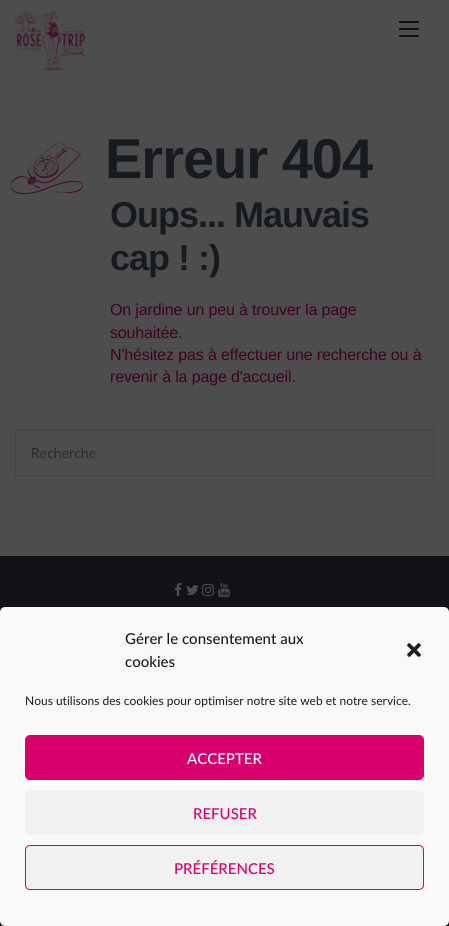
import math
import cairo


def use_color(cr, r, g, b):
  cr.set_source_rgb(r / 255, g / 255, b / 255)

def text(cr, x, y, s, family, size, color, bold=False, italic=False):
  cr.select_font_face(family, cairo.FONT_SLANT_ITALIC if italic else cairo.FONT_SLANT_NORMAL, cairo.FONT_WEIGHT_BOLD if bold else cairo.FONT_WEIGHT_NORMAL)
  cr.set_font_size(size)
  use_color(cr, *color)
  cr.move_to(x, y)
  cr.show_text(s)

def spaced_text(cr, x, y, s, letter, word):
  cr.move_to(x, y)
  for ch in s:
    cr.show_text(ch)
    cr.rel_move_to(letter + word * (ch == ' '), 0)

def box(cr, x, y, w, h, *color):
  use_color(cr, *color)
  cr.rectangle(x, y, w, h)
  cr.fill()

def round_rect(cr, x, y, w, h, r):
  cr.new_sub_path()
  for i, (u, v) in enumerate([(x + w - r, y + h - r), (x + r, y + h - r), (x + r, y + r), (x + w - r, y + r)]):
    cr.arc(u, v, r, i * math.pi / 2, (i + 1) * math.pi / 2)
  cr.close_path()

def picture(cr, path, x, y, w, h):
  cr.save()
  cr.set_source_surface(cairo.ImageSurface.create_from_png(path), x, y)
  cr.rectangle(x, y, w, h)
  cr.fill()
  cr.restore()

def draw(cr):
  use_color(cr, 77, 77, 77)
  cr.paint()
  picture(cr, "img_01.png", 15, 11, 70, 60)
  box(cr, 399, 28, 20, 2, 16, 16, 16)
  box(cr, 399, 21, 20, 2, 16, 16, 16)
  box(cr, 399, 35, 20, 2, 16, 16, 16)
  picture(cr, "img_02.png", 10, 141, 74, 54)
  cr.rectangle(15.5, 429.5, 418, 46)
  use_color(cr, 68, 68, 68)
  cr.set_line_width(1)
  cr.stroke()
  box(cr, 0, 556, 449, 370, 18, 19, 22)
  picture(cr, "img_03.png", 174, 583, 8, 13)
  picture(cr, "img_04.png", 186, 585, 13, 10)
  picture(cr, "img_05.png", 202, 584, 12, 12)
  picture(cr, "img_06.png", 218, 583, 12, 14)
  use_color(cr, 249, 249, 249)
  round_rect(cr, 2.5, 609.5, 444, 314, 2.5)
  cr.fill_preserve()
  cr.set_line_width(5)
  cr.stroke()
  picture(cr, "img_07.png", 407, 643, 14, 14)
  use_color(cr, 215, 0, 109)
  round_rect(cr, 25.5, 735.5, 398, 44, 4.5)
  cr.fill_preserve()
  cr.set_line_width(1)
  cr.stroke()
  use_color(cr, 241, 241, 241)
  round_rect(cr, 25, 790, 399, 45, 5)
  cr.fill()
  round_rect(cr, 25.5, 845.5, 398, 44, 4.5)
  cr.fill_preserve()
  use_color(cr, 215, 0, 109)
  cr.stroke()
  cr.select_font_face("Liberation Sans", cairo.FONT_SLANT_NORMAL, cairo.FONT_WEIGHT_BOLD)
  cr.set_font_size(56)
  use_color(cr, 23, 26, 31)
  spaced_text(cr, 105, 178, "Erreur 404", -1, 0)
  cr.set_font_size(36)
  spaced_text(cr, 110, 227, "Oups... Mauvais", -1, 0)
  spaced_text(cr, 110, 270, "cap ! :)", -1, 0)
  cr.select_font_face("Liberation Sans")
  cr.set_font_size(16)
  use_color(cr, 65, 0, 33)
  spaced_text(cr, 110, 315, "On jardine un peu à trouver la page", -0.15, 0)
  spaced_text(cr, 110, 338, "souhaitée.", -0.15, 0)
  spaced_text(cr, 110, 360, "N'hésitez pas à effectuer une recherche ou à", -0.15, 0)
  spaced_text(cr, 110, 382, "revenir à la page d'accueil.", -0.15, 0)
  text(cr, 31, 458, "Recherche", "Lato", 14, (42, 42, 42))
  text(cr, 125, 644, "Gérer le consentement aux", "Lato Medium", 15, (23, 26, 31))
  text(cr, 125, 667, "cookies", "Lato Medium", 15, (23, 26, 31))
  text(cr, 25, 705, "Nous utilisons des cookies pour optimiser notre site web et notre service.", "Lato", 12, (23, 26, 31))
  text(cr, 187, 764, "ACCEPTER", "Lato Medium", 15, (255, 255, 255))
  text(cr, 193, 819, "REFUSER", "Lato Medium", 15, (215, 0, 109))
  text(cr, 174, 874, "PRÉFÉRENCES", "Lato Medium", 15, (215, 0, 109))


surface = cairo.ImageSurface(cairo.FORMAT_RGB24, 449, 926)
cr = cairo.Context(surface)
options = cairo.FontOptions()
options.set_hint_metrics(cairo.HINT_METRICS_OFF)
options.set_hint_style(cairo.HINT_STYLE_NONE)
cr.set_font_options(options)
cr.set_miter_limit(4)
draw(cr)
surface.write_to_png("out.png")
